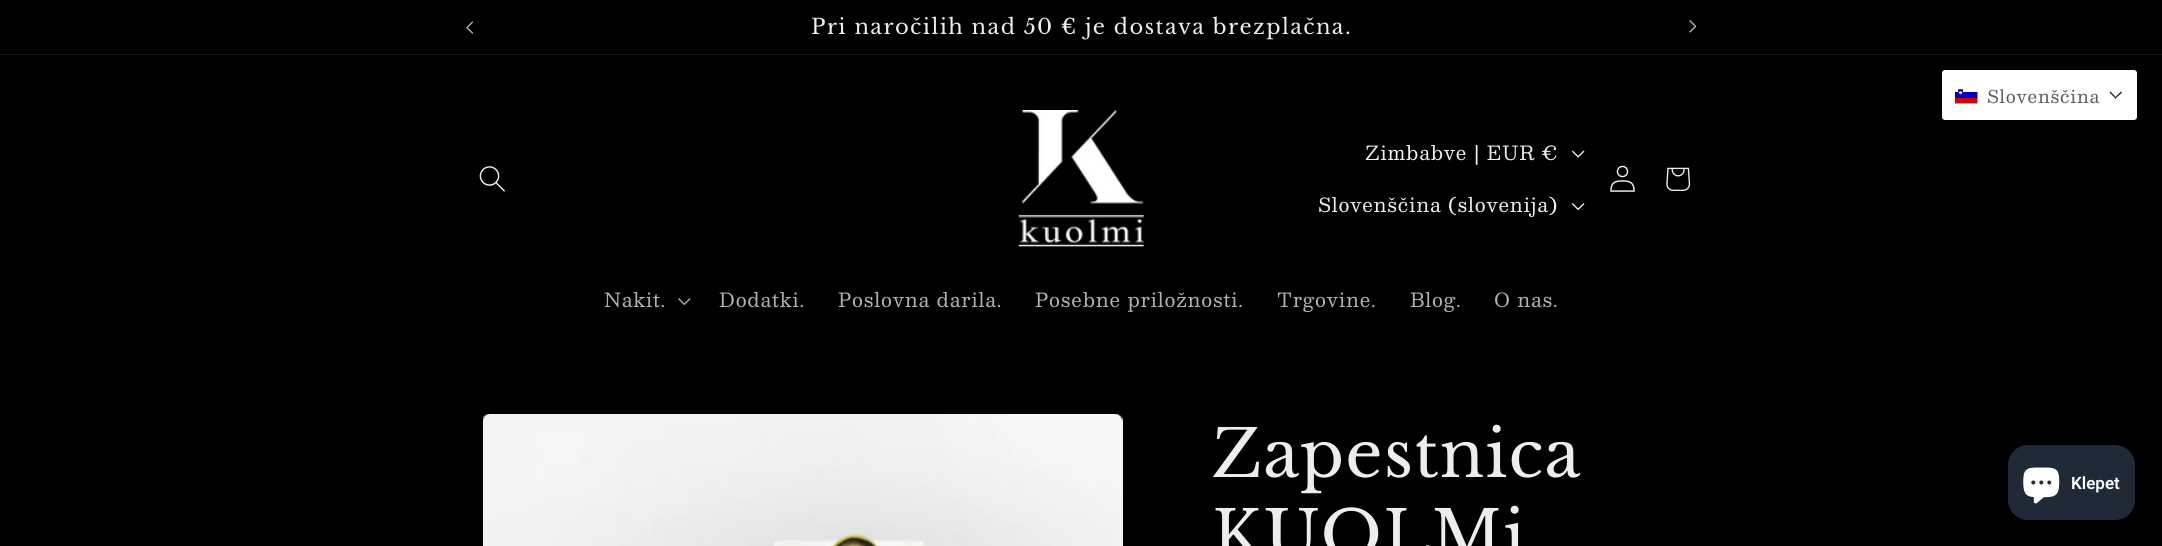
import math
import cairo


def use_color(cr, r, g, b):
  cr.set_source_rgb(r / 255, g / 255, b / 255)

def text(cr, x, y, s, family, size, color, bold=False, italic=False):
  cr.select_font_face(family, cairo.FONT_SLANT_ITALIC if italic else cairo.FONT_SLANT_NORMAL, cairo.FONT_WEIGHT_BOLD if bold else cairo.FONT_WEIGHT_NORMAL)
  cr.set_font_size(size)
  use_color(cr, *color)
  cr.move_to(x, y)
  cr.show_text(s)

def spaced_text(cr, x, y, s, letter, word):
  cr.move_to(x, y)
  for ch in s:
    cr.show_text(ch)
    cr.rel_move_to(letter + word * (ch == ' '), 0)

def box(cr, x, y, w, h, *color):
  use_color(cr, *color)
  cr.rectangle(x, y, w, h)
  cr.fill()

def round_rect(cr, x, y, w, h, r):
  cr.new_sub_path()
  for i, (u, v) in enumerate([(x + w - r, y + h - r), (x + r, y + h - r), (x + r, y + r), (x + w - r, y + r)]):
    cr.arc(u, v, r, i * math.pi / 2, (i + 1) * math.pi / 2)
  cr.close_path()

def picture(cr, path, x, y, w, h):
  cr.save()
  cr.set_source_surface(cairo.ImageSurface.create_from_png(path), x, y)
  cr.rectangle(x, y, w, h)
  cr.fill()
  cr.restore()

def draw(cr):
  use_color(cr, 0, 0, 0)
  cr.paint()
  box(cr, 0, 54, 2162, 1, 19, 19, 19)
  picture(cr, "img_01.png", 466, 21, 7, 13)
  picture(cr, "img_02.png", 1689, 20, 8, 13)
  use_color(cr, 255, 255, 255)
  round_rect(cr, 1941.5, 69.5, 196, 51, 3.5)
  cr.fill_preserve()
  use_color(cr, 0, 0, 0)
  cr.set_line_width(1)
  cr.stroke()
  picture(cr, "img_03.png", 1955, 89, 23, 15)
  use_color(cr, 26, 26, 26)
  cr.new_path()
  cr.move_to(2121, 91.5)
  cr.line_to(2122, 92.5)
  cr.line_to(2115.5, 98.5)
  cr.line_to(2114.5, 98)
  cr.close_path()
  cr.fill()
  cr.new_path()
  cr.move_to(2110.5, 91.5)
  cr.line_to(2116.5, 98)
  cr.line_to(2115.5, 98.5)
  cr.line_to(2109.5, 92.5)
  cr.close_path()
  cr.fill()
  picture(cr, "img_04.png", 479, 166, 26, 26)
  picture(cr, "img_05.png", 1018, 110, 126, 137)
  picture(cr, "img_06.png", 1572, 150, 13, 8)
  picture(cr, "img_07.png", 1572, 203, 13, 7)
  picture(cr, "img_08.png", 1610, 165, 25, 27)
  picture(cr, "img_09.png", 1666, 167, 25, 24)
  picture(cr, "img_10.png", 678, 298, 13, 7)
  picture(cr, "img_11.png", 483, 414, 640, 132)
  use_color(cr, 32, 42, 54)
  round_rect(cr, 2008, 445, 127, 75, 20)
  cr.fill()
  picture(cr, "img_12.png", 2023, 467, 37, 37)
  cr.select_font_face("Libre Baskerville")
  cr.set_font_size(21.1)
  use_color(cr, 239, 236, 236)
  spaced_text(cr, 811, 34, "Pri naročilih nad 50 € je dostava brezplačna.", 1.4, 0)
  cr.select_font_face("Besley")
  cr.set_font_size(17.5)
  use_color(cr, 92, 92, 92)
  spaced_text(cr, 1987, 103, "Slovenščina", 0.8, 0)
  cr.set_font_size(19.25)
  use_color(cr, 239, 236, 236)
  spaced_text(cr, 1365, 160, "Zimbabve | EUR €", 0.8, 0)
  spaced_text(cr, 1318, 212, "Slovenščina (slovenija)", 0.8, 0)
  use_color(cr, 179, 177, 177)
  spaced_text(cr, 604, 307, "Nakit.", 0.8, 0)
  spaced_text(cr, 719, 307, "Dodatki.", 0.8, 0)
  spaced_text(cr, 838, 307, "Poslovna darila.", 0.8, 0)
  spaced_text(cr, 1035, 307, "Posebne priložnosti.", 0.8, 0)
  spaced_text(cr, 1277, 307, "Trgovine.", 0.8, 0)
  spaced_text(cr, 1410, 307, "Blog.", 0.8, 0)
  spaced_text(cr, 1494, 307, "O nas.", 0.8, 0)
  cr.select_font_face("Libre Baskerville")
  cr.set_font_size(65)
  use_color(cr, 239, 236, 236)
  spaced_text(cr, 1212, 477, "Zapestnica", 1, 0)
  spaced_text(cr, 1212, 558, "KUOLMi", 1, 0)
  text(cr, 2071, 489, "Klepet", "Roboto SemiBold", 17, (255, 255, 255))


surface = cairo.ImageSurface(cairo.FORMAT_RGB24, 2162, 546)
cr = cairo.Context(surface)
options = cairo.FontOptions()
options.set_hint_metrics(cairo.HINT_METRICS_OFF)
options.set_hint_style(cairo.HINT_STYLE_NONE)
cr.set_font_options(options)
cr.set_miter_limit(4)
draw(cr)
surface.write_to_png("out.png")
